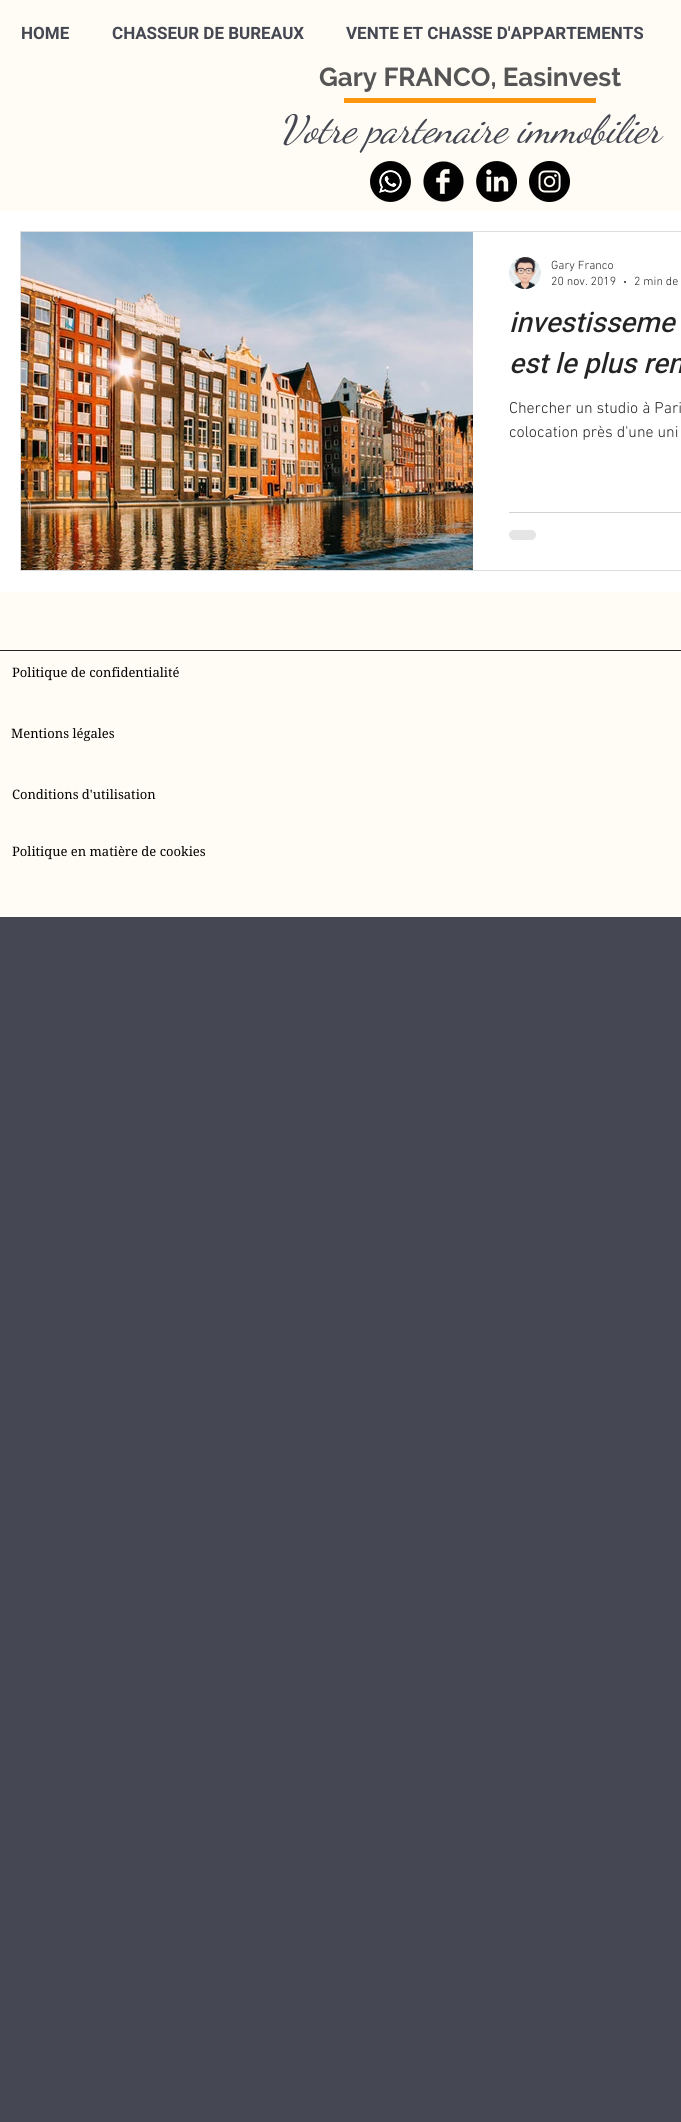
import math
import cairo


def use_color(cr, r, g, b):
  cr.set_source_rgb(r / 255, g / 255, b / 255)

def text(cr, x, y, s, family, size, color, bold=False, italic=False):
  cr.select_font_face(family, cairo.FONT_SLANT_ITALIC if italic else cairo.FONT_SLANT_NORMAL, cairo.FONT_WEIGHT_BOLD if bold else cairo.FONT_WEIGHT_NORMAL)
  cr.set_font_size(size)
  use_color(cr, *color)
  cr.move_to(x, y)
  cr.show_text(s)

def box(cr, x, y, w, h, *color):
  use_color(cr, *color)
  cr.rectangle(x, y, w, h)
  cr.fill()

def round_rect(cr, x, y, w, h, r):
  cr.new_sub_path()
  for i, (u, v) in enumerate([(x + w - r, y + h - r), (x + r, y + h - r), (x + r, y + r), (x + w - r, y + r)]):
    cr.arc(u, v, r, i * math.pi / 2, (i + 1) * math.pi / 2)
  cr.close_path()

def picture(cr, path, x, y, w, h):
  cr.save()
  cr.set_source_surface(cairo.ImageSurface.create_from_png(path), x, y)
  cr.rectangle(x, y, w, h)
  cr.fill()
  cr.restore()

def draw(cr):
  use_color(cr, 69, 72, 82)
  cr.paint()
  box(cr, 0, 0, 681, 211, 255, 252, 245)
  box(cr, 344, 98, 252, 5, 253, 150, 13)
  picture(cr, "img_01.png", 370, 161, 41, 41)
  picture(cr, "img_02.png", 423, 161, 41, 41)
  picture(cr, "img_03.png", 476, 161, 41, 41)
  picture(cr, "img_04.png", 529, 161, 41, 41)
  box(cr, 0, 211, 681, 381, 255, 255, 255)
  cr.rectangle(20.5, 231.5, 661, 339)
  use_color(cr, 221, 221, 221)
  cr.set_line_width(1)
  cr.stroke()
  picture(cr, "img_05.png", 21, 232, 452, 338)
  picture(cr, "img_06.png", 509, 257, 32, 32)
  use_color(cr, 36, 36, 36)
  cr.arc(625, 282, 1, 0, 2 * math.pi)
  cr.fill()
  box(cr, 509, 512, 172, 1, 211, 211, 211)
  use_color(cr, 229, 229, 229)
  round_rect(cr, 509, 530, 27, 10, 5)
  cr.fill()
  box(cr, 0, 592, 681, 325, 255, 252, 245)
  box(cr, 0, 650, 681, 1, 36, 36, 36)
  text(cr, 21, 39, "HOME", "Heebo", 17, (69, 72, 82), bold=True)
  text(cr, 112, 39, "CHASSEUR DE BUREAUX", "Heebo", 17, (69, 72, 82), bold=True)
  text(cr, 346, 39, "VENTE ET CHASSE D'APPARTEMENTS", "Heebo", 17, (69, 72, 82), bold=True)
  text(cr, 319, 86, "Gary FRANCO, Easinvest", "Raleway", 26, (85, 85, 85), bold=True)
  text(cr, 279, 142, "Votre partenaire immobilier", "Dancing Script", 39, (69, 72, 82), italic=True)
  text(cr, 551, 269, "Gary Franco", "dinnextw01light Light", 12, (36, 36, 36))
  text(cr, 551, 285, "20 nov. 2019", "dinnextw01light Light", 12, (36, 36, 36))
  text(cr, 634, 285, "2 min de", "dinnextw01light Light", 12, (36, 36, 36))
  text(cr, 509, 332, "investisseme", "Heebo Medium", 28, (36, 36, 36), italic=True)
  text(cr, 509, 373, "est le plus ren", "Heebo Medium", 28, (36, 36, 36), italic=True)
  text(cr, 509, 413, "Chercher un studio à Pari", "dinnextw01light Light", 16, (36, 36, 36))
  text(cr, 509, 437, "colocation près d'une uni", "dinnextw01light Light", 16, (36, 36, 36))
  text(cr, 12, 677, "Politique de confidentialité", "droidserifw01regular", 13, (0, 0, 0))
  text(cr, 11, 738, "Mentions légales", "droidserifw01regular", 13, (0, 0, 0))
  text(cr, 12, 799, "Conditions d'utilisation", "droidserifw01regular", 13, (0, 0, 0))
  text(cr, 12, 856, "Politique en matière de cookies", "droidserifw01regular", 13, (0, 0, 0))


surface = cairo.ImageSurface(cairo.FORMAT_RGB24, 681, 2122)
cr = cairo.Context(surface)
options = cairo.FontOptions()
options.set_hint_metrics(cairo.HINT_METRICS_OFF)
options.set_hint_style(cairo.HINT_STYLE_NONE)
cr.set_font_options(options)
cr.set_miter_limit(4)
draw(cr)
surface.write_to_png("out.png")
